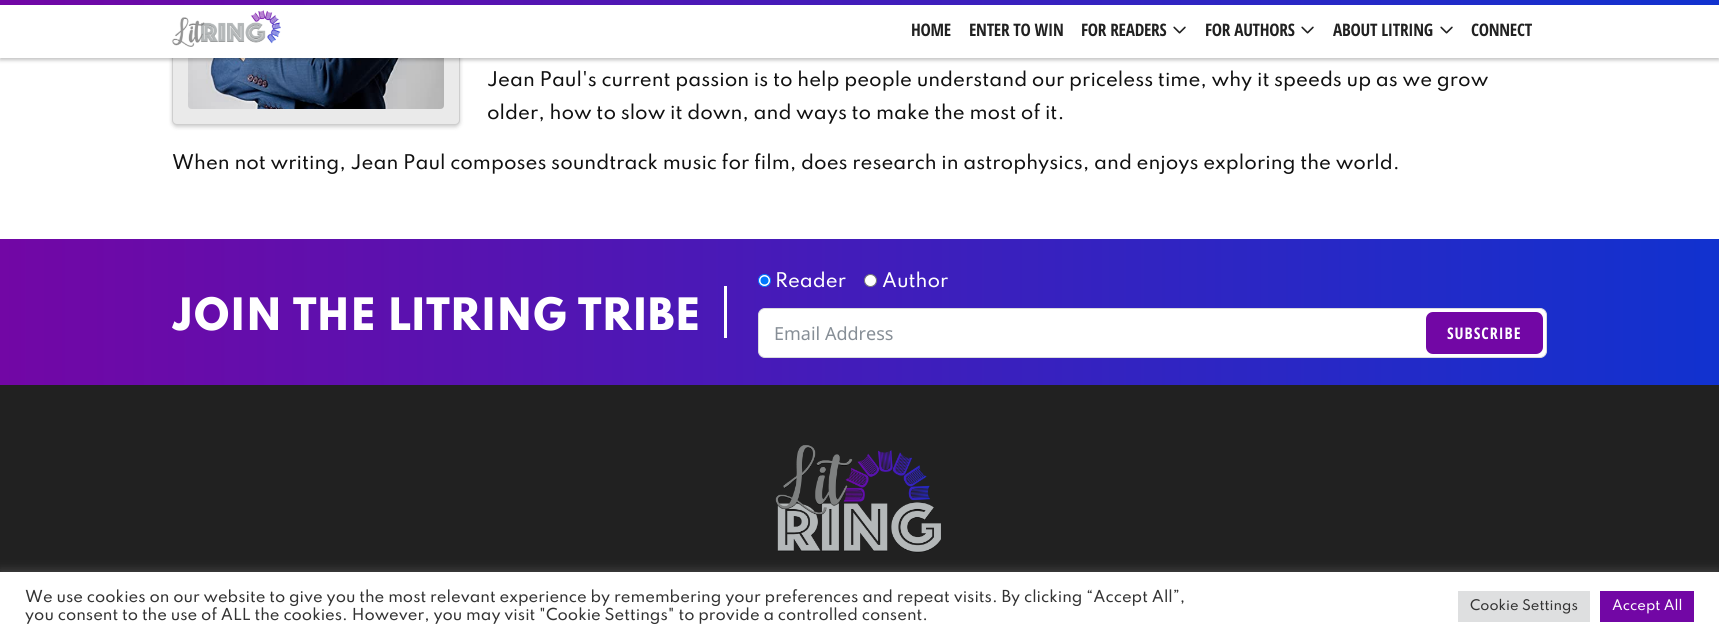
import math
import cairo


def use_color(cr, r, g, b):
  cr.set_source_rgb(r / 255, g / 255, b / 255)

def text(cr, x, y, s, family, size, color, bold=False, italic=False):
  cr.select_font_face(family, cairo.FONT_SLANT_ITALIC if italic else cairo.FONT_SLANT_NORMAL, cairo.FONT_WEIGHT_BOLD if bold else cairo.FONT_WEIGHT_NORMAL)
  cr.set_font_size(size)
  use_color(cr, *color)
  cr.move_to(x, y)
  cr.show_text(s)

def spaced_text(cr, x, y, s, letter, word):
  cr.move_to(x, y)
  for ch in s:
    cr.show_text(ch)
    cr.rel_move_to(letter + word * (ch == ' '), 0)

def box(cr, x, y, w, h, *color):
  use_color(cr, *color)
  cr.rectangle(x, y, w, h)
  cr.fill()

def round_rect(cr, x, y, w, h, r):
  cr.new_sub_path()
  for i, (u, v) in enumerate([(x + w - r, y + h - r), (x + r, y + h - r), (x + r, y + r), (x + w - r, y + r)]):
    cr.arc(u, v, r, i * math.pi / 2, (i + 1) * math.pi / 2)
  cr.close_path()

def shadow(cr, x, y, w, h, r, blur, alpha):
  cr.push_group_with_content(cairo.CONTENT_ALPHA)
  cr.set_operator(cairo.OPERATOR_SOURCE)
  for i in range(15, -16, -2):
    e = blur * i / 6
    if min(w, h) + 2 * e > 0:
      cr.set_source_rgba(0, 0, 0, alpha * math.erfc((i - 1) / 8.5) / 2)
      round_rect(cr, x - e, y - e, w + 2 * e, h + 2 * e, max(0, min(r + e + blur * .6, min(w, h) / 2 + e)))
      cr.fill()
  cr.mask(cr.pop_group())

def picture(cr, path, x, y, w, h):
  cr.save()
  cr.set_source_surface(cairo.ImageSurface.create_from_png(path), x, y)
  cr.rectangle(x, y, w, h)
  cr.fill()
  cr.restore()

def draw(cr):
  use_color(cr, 255, 255, 255)
  cr.paint()
  use_color(cr, 0, 0, 0)
  shadow(cr, 172, -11, 288, 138, 5, 2, 0.2)
  use_color(cr, 234, 234, 234)
  round_rect(cr, 172, -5, 288, 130, 5)
  cr.fill()
  round_rect(cr, 172.5, -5.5, 287, 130, 4.5)
  cr.set_source_rgba(0, 0, 0, 0.12)
  cr.set_line_width(1)
  cr.stroke()
  picture(cr, "img_03.png", 188, 58, 256, 51)
  use_color(cr, 0, 0, 0)
  shadow(cr, 0, 2, 1719, 58, 0, 2, 0.25)
  box(cr, 0, 5, 1719, 53, 255, 255, 255)
  gradient = cairo.LinearGradient(0, 2.5, 1719, 2.5)
  gradient.add_color_stop_rgba(0, 0.447, 0.027, 0.647, 1)
  gradient.add_color_stop_rgba(1, 0.067, 0.196, 0.812, 1)
  cr.set_source(gradient)
  cr.rectangle(0, 0, 1719, 5)
  cr.fill()
  picture(cr, "img_01.png", 171, 10, 110, 37)
  picture(cr, "img_02.png", 1173, 26, 13, 8)
  picture(cr, "img_02.png", 1301, 26, 13, 8)
  picture(cr, "img_02.png", 1440, 26, 13, 8)
  gradient = cairo.LinearGradient(0, 312, 1719, 312)
  gradient.add_color_stop_rgba(0, 0.447, 0.027, 0.647, 1)
  gradient.add_color_stop_rgba(1, 0.067, 0.196, 0.812, 1)
  cr.set_source(gradient)
  cr.rectangle(0, 239, 1719, 146)
  cr.fill()
  box(cr, 724, 286, 3, 52, 255, 255, 255)
  cr.arc(764.5, 280.5, 6, 0, 2 * math.pi)
  cr.fill_preserve()
  use_color(cr, 0, 117, 255)
  cr.stroke()
  cr.arc(764.5, 280.5, 4, 0, 2 * math.pi)
  cr.fill()
  use_color(cr, 255, 255, 255)
  cr.arc(870.5, 280.5, 6, 0, 2 * math.pi)
  cr.fill_preserve()
  use_color(cr, 118, 118, 118)
  cr.stroke()
  use_color(cr, 255, 255, 255)
  round_rect(cr, 758.5, 308.5, 788, 49, 6.5)
  cr.fill_preserve()
  use_color(cr, 218, 219, 221)
  cr.stroke()
  use_color(cr, 114, 7, 165)
  round_rect(cr, 1426, 312, 117, 42, 7)
  cr.fill()
  box(cr, 0, 385, 1719, 187, 33, 33, 33)
  picture(cr, "img_04.png", 775, 445, 166, 108)
  use_color(cr, 172, 171, 171)
  shadow(cr, 0, 571, 1719, 69, 0, 5, 0.3)
  box(cr, 0, 572, 1719, 69, 255, 255, 255)
  box(cr, 1458, 591, 132, 31, 222, 223, 224)
  box(cr, 1600, 591, 94, 31, 114, 7, 165)
  cr.select_font_face("Open Sans Condensed", cairo.FONT_SLANT_NORMAL, cairo.FONT_WEIGHT_BOLD)
  cr.set_font_size(17.25)
  use_color(cr, 33, 33, 33)
  spaced_text(cr, 911, 36, "HOME", -0.25, 0)
  spaced_text(cr, 969, 36, "ENTER TO WIN", -0.25, 0)
  spaced_text(cr, 1081, 36, "FOR READERS", -0.25, 0)
  spaced_text(cr, 1205, 36, "FOR AUTHORS", -0.25, 0)
  spaced_text(cr, 1333, 36, "ABOUT LITRING", -0.25, 0)
  spaced_text(cr, 1471, 36, "CONNECT", -0.25, 0)
  text(cr, 487, 86, "Jean Paul's current passion is to help people understand our priceless time, why it speeds up as we grow", "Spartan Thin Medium", 18, (17, 17, 17))
  text(cr, 487, 119, "older, how to slow it down, and ways to make the most of it.", "Spartan Thin Medium", 18, (17, 17, 17))
  text(cr, 172, 169, "When not writing, Jean Paul composes soundtrack music for film, does research in astrophysics, and enjoys exploring the world.", "Spartan Thin Medium", 18, (17, 17, 17))
  text(cr, 172, 330, "JOIN THE LITRING TRIBE", "Spartan Thin ExtraBold", 39.6, (255, 255, 255))
  text(cr, 775, 287, "Reader", "Spartan Thin Medium", 18, (255, 255, 255))
  text(cr, 882, 287, "Author", "Spartan Thin Medium", 18, (255, 255, 255))
  text(cr, 774, 340, "Email Address", "Noto Sans", 18, (134, 142, 150))
  cr.select_font_face("Open Sans Condensed", cairo.FONT_SLANT_NORMAL, cairo.FONT_WEIGHT_BOLD)
  cr.set_font_size(16)
  use_color(cr, 255, 255, 255)
  spaced_text(cr, 1447, 339, "SUBSCRIBE", 1, 0)
  text(cr, 25, 602, "We use cookies on our website to give you the most relevant experience by remembering your preferences and repeat visits. By clicking “Accept All”,", "Spartan Thin Medium", 14.67, (51, 51, 51))
  text(cr, 25, 620, "you consent to the use of ALL the cookies. However, you may visit \"Cookie Settings\" to provide a controlled consent.", "Spartan Thin Medium", 14.67, (51, 51, 51))
  text(cr, 1470, 610, "Cookie Settings", "Spartan Thin Medium", 13, (51, 51, 51))
  text(cr, 1612, 610, "Accept All", "Spartan Thin Medium", 13, (255, 255, 255))


surface = cairo.ImageSurface(cairo.FORMAT_RGB24, 1719, 641)
cr = cairo.Context(surface)
options = cairo.FontOptions()
options.set_hint_metrics(cairo.HINT_METRICS_OFF)
options.set_hint_style(cairo.HINT_STYLE_NONE)
cr.set_font_options(options)
cr.set_miter_limit(4)
draw(cr)
surface.write_to_png("out.png")
